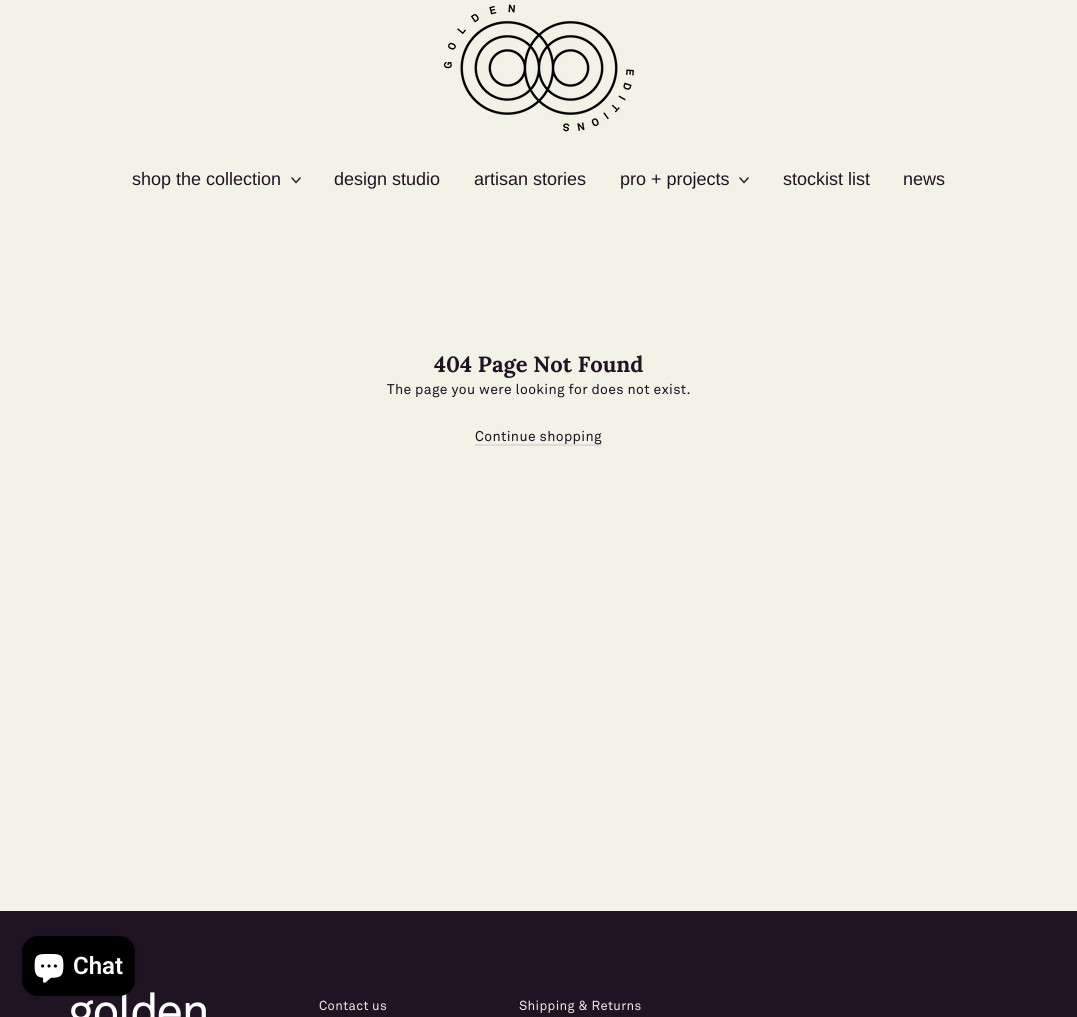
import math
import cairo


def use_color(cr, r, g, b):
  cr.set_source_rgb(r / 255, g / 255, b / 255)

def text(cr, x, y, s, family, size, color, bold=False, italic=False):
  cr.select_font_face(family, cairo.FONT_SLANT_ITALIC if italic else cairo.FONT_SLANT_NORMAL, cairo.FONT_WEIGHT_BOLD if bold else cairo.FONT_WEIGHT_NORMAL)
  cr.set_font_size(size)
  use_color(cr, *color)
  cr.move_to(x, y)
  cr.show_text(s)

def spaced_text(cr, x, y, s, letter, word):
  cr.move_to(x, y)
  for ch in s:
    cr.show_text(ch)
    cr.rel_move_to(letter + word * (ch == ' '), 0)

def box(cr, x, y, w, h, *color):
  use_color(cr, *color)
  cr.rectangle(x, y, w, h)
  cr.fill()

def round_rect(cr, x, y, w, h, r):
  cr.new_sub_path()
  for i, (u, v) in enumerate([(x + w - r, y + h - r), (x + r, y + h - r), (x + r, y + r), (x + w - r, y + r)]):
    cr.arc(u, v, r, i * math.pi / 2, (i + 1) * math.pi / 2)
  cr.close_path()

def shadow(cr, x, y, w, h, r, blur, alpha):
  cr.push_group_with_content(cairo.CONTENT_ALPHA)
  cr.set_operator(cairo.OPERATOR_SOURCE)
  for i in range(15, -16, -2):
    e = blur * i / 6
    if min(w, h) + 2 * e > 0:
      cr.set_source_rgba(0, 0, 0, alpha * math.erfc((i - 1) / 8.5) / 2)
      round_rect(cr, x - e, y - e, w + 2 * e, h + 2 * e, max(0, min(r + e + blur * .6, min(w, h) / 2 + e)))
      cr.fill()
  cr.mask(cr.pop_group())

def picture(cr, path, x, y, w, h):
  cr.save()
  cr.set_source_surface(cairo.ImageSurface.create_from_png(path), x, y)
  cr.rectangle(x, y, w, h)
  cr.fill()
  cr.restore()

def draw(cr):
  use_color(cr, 243, 242, 231)
  cr.paint()
  box(cr, 0, 911, 1077, 106, 32, 19, 35)
  picture(cr, "img_03.png", 71, 992, 135, 25)
  use_color(cr, 0, 0, 0)
  shadow(cr, 22, 936, 113, 60, 16, 2.5, 0.15)
  use_color(cr, 0, 0, 0)
  round_rect(cr, 22, 936, 113, 60, 16)
  cr.fill()
  picture(cr, "img_01.png", 34, 954, 30, 29)
  picture(cr, "img_02.png", 444, 4, 190, 128)
  cr.new_path()
  cr.move_to(291.5, 177.5)
  cr.line_to(296, 182.5)
  cr.line_to(300.5, 177.5)
  use_color(cr, 32, 19, 35)
  cr.set_line_width(1.4)
  cr.stroke()
  cr.new_path()
  cr.move_to(739.5, 177.5)
  cr.line_to(744, 182.5)
  cr.line_to(748.5, 177.5)
  cr.stroke()
  box(cr, 475, 444, 127, 2, 222, 220, 211)
  text(cr, 73, 974, "Chat", "Roboto SemiBold", 24, (255, 255, 255))
  text(cr, 132, 185, "shop the collection", "Liberation Sans", 18, (32, 19, 35))
  text(cr, 334, 185, "design studio", "Liberation Sans", 18, (32, 19, 35))
  text(cr, 474, 185, "artisan stories", "Liberation Sans", 18, (32, 19, 35))
  text(cr, 620, 185, "pro + projects", "Liberation Sans", 18, (32, 19, 35))
  text(cr, 783, 185, "stockist list", "Liberation Sans", 18, (32, 19, 35))
  text(cr, 903, 185, "news", "Liberation Sans", 18, (32, 19, 35))
  text(cr, 434, 372, "404 Page Not Found", "Lora", 22, (32, 19, 35), bold=True)
  cr.select_font_face("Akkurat")
  cr.set_font_size(14)
  spaced_text(cr, 387, 394, "The page you were looking for does not exist.", 0.35, 0)
  spaced_text(cr, 475, 441, "Continue shopping", 0.35, 0)
  cr.set_font_size(13)
  use_color(cr, 232, 232, 225)
  spaced_text(cr, 319, 1010, "Contact us", 0.35, 0)
  spaced_text(cr, 519, 1010, "Shipping & Returns", 0.35, 0)


surface = cairo.ImageSurface(cairo.FORMAT_RGB24, 1077, 1017)
cr = cairo.Context(surface)
options = cairo.FontOptions()
options.set_hint_metrics(cairo.HINT_METRICS_OFF)
options.set_hint_style(cairo.HINT_STYLE_NONE)
cr.set_font_options(options)
cr.set_miter_limit(4)
draw(cr)
surface.write_to_png("out.png")
